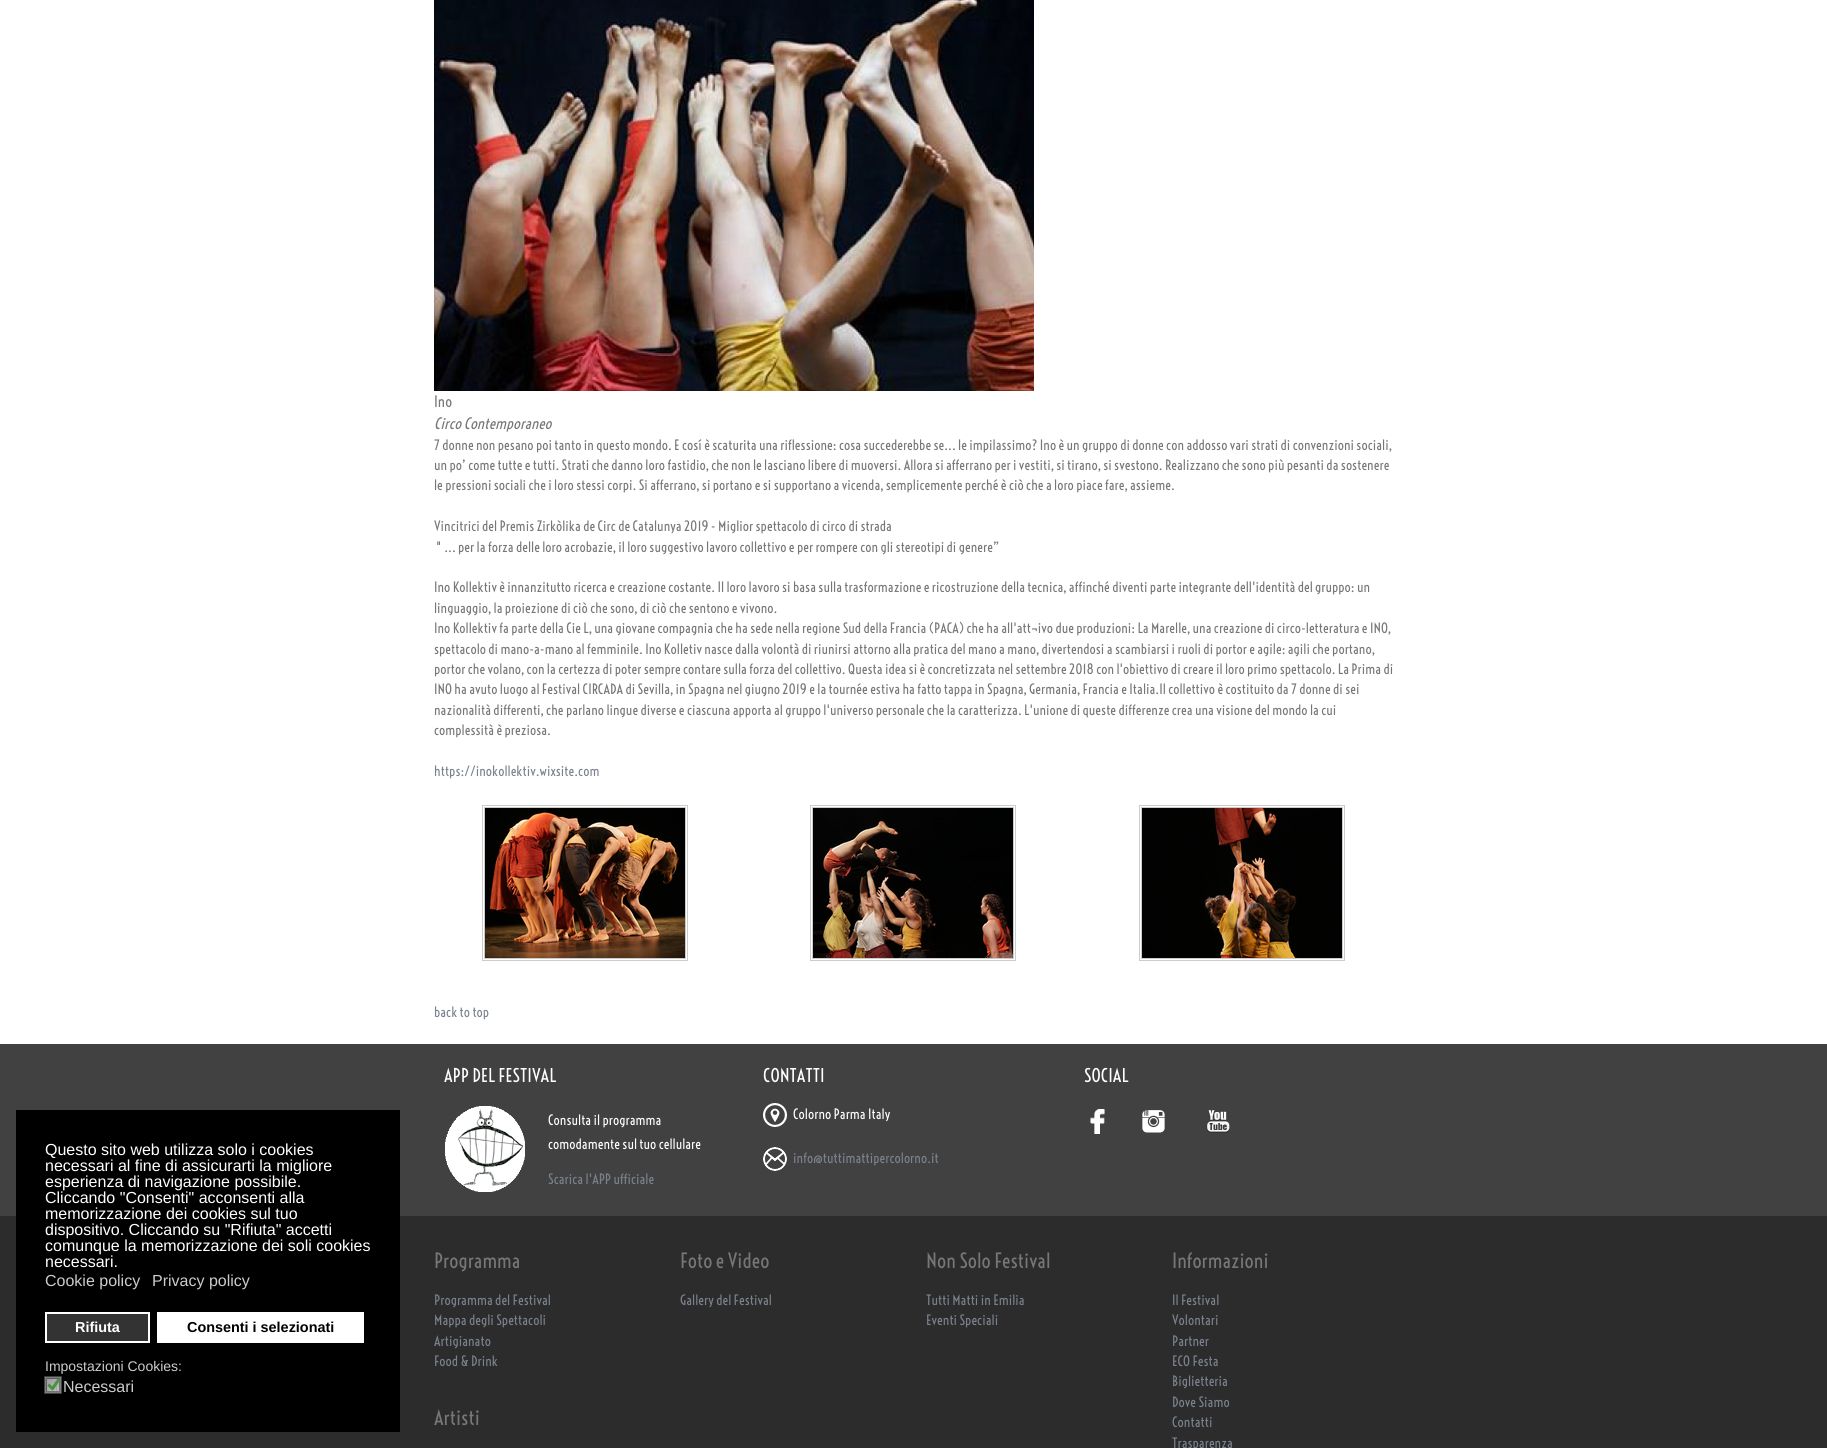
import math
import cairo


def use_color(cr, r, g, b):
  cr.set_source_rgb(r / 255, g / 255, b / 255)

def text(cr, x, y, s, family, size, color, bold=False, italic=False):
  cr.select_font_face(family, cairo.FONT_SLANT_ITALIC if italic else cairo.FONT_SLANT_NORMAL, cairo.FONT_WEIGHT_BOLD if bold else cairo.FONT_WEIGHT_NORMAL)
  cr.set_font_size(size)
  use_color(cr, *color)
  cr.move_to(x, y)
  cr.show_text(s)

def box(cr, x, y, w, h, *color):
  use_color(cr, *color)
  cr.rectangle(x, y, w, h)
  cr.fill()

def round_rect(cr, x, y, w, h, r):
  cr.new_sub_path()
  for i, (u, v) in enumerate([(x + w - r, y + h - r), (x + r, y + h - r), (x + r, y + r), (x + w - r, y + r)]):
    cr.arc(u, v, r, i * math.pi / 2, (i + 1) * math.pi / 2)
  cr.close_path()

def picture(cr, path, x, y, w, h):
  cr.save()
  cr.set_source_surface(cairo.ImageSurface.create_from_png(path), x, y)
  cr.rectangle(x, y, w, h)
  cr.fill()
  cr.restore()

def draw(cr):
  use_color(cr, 255, 255, 255)
  cr.paint()
  box(cr, 0, 1044, 1827, 172, 65, 65, 65)
  box(cr, 0, 1216, 1827, 232, 44, 44, 44)
  box(cr, 16, 1110, 384, 322, 0, 0, 0)
  use_color(cr, 51, 51, 51)
  cr.rectangle(46, 1313, 103, 29)
  cr.fill_preserve()
  use_color(cr, 255, 255, 255)
  cr.stroke()
  box(cr, 157, 1312, 207, 31, 255, 255, 255)
  use_color(cr, 128, 128, 128)
  round_rect(cr, 44.5, 1376.5, 17, 17, 0.5)
  cr.fill_preserve()
  use_color(cr, 64, 64, 64)
  cr.set_line_width(1)
  cr.stroke()
  picture(cr, "img_01.png", 46, 1378, 14, 14)
  cr.new_path()
  cr.move_to(59.5, 1378.5)
  cr.line_to(59.5, 1385)
  cr.curve_to(59.5, 1393.5, 61.5, 1391.5, 53, 1391.5)
  cr.line_to(46.5, 1391.5)
  use_color(cr, 110, 111, 111)
  cr.stroke()
  cr.new_path()
  cr.move_to(46.5, 1391.5)
  cr.line_to(46.5, 1385)
  cr.curve_to(46.5, 1376.5, 44.5, 1378.5, 53, 1378.5)
  cr.line_to(59.5, 1378.5)
  use_color(cr, 90, 90, 90)
  cr.stroke()
  picture(cr, "img_02.png", 434, 0, 600, 391)
  cr.rectangle(482.5, 805.5, 205, 155)
  use_color(cr, 204, 204, 204)
  cr.stroke()
  cr.rectangle(484.5, 807.5, 201, 151)
  cr.stroke()
  picture(cr, "img_03.png", 485, 808, 200, 150)
  cr.rectangle(810.5, 805.5, 205, 155)
  cr.stroke()
  cr.rectangle(812.5, 807.5, 201, 151)
  cr.stroke()
  picture(cr, "img_04.png", 813, 808, 200, 150)
  cr.rectangle(1139.5, 805.5, 205, 155)
  cr.stroke()
  cr.rectangle(1141.5, 807.5, 201, 151)
  cr.stroke()
  picture(cr, "img_05.png", 1142, 808, 200, 150)
  picture(cr, "img_06.png", 445, 1106, 80, 86)
  picture(cr, "img_07.png", 763, 1103, 24, 24)
  picture(cr, "img_08.png", 763, 1147, 24, 24)
  picture(cr, "img_09.png", 1090, 1109, 15, 25)
  picture(cr, "img_10.png", 1142, 1110, 23, 23)
  picture(cr, "img_11.png", 1206, 1110, 24, 23)
  text(cr, 45, 1155, "Questo sito web utilizza solo i cookies", "Liberation Sans", 16, (255, 255, 255))
  text(cr, 45, 1171, "necessari al fine di assicurarti la migliore", "Liberation Sans", 16, (255, 255, 255))
  text(cr, 45, 1187, "esperienza di navigazione possibile.", "Liberation Sans", 16, (255, 255, 255))
  text(cr, 45, 1203, "Cliccando \"Consenti\" acconsenti alla", "Liberation Sans", 16, (255, 255, 255))
  text(cr, 45, 1219, "memorizzazione dei cookies sul tuo", "Liberation Sans", 16, (255, 255, 255))
  text(cr, 45, 1235, "dispositivo. Cliccando su \"Rifiuta\" accetti", "Liberation Sans", 16, (255, 255, 255))
  text(cr, 45, 1251, "comunque la memorizzazione dei soli cookies", "Liberation Sans", 16, (255, 255, 255))
  text(cr, 45, 1267, "necessari.", "Liberation Sans", 16, (255, 255, 255))
  text(cr, 45, 1286, "Cookie policy", "Liberation Sans", 16, (204, 204, 204))
  text(cr, 152, 1286, "Privacy policy", "Liberation Sans", 16, (204, 204, 204))
  text(cr, 75, 1332, "Rifiuta", "Liberation Sans", 14.4, (255, 255, 255), bold=True)
  text(cr, 187, 1332, "Consenti i selezionati", "Liberation Sans", 14.4, (0, 0, 0), bold=True)
  text(cr, 45, 1371, "Impostazioni Cookies:", "Liberation Sans", 14, (204, 204, 204))
  text(cr, 63, 1392, "Necessari", "Liberation Sans", 16, (204, 204, 204))
  text(cr, 434, 407, "Ino", "Voltaire", 15, (119, 119, 119))
  text(cr, 434, 429, "Circo Contemporaneo", "Voltaire", 15, (119, 119, 119), italic=True)
  text(cr, 434, 450, "7 donne non pesano poi tanto in questo mondo. E cosí è scaturita una riflessione: cosa succederebbe se... le impilassimo? Ino è un gruppo di donne con addosso vari strati di convenzioni sociali,", "Voltaire", 13.6, (119, 119, 119))
  text(cr, 434, 470, "un po’ come tutte e tutti. Strati che danno loro fastidio, che non le lasciano libere di muoversi. Allora si afferrano per i vestiti, si tirano, si svestono. Realizzano che sono più pesanti da sostenere", "Voltaire", 13.6, (119, 119, 119))
  text(cr, 434, 490, "le pressioni sociali che i loro stessi corpi. Si afferrano, si portano e si supportano a vicenda, semplicemente perché è ciò che a loro piace fare, assieme.", "Voltaire", 13.6, (119, 119, 119))
  text(cr, 434, 531, "Vincitrici del Premis Zirkòlika de Circ de Catalunya 2019 - Miglior spettacolo di circo di strada", "Voltaire", 13.6, (119, 119, 119))
  text(cr, 436, 552, "\" ... per la forza delle loro acrobazie, il loro suggestivo lavoro collettivo e per rompere con gli stereotipi di genere”", "Voltaire", 13.6, (119, 119, 119))
  text(cr, 434, 592, "Ino Kollektiv è innanzitutto ricerca e creazione costante. Il loro lavoro si basa sulla trasformazione e ricostruzione della tecnica, affinché diventi parte integrante dell'identità del gruppo: un", "Voltaire", 13.6, (119, 119, 119))
  text(cr, 434, 613, "linguaggio, la proiezione di ciò che sono, di ciò che sentono e vivono.", "Voltaire", 13.6, (119, 119, 119))
  text(cr, 434, 633, "Ino Kollektiv fa parte della Cie L, una giovane compagnia che ha sede nella regione Sud della Francia (PACA) che ha all'att¬ivo due produzioni: La Marelle, una creazione di circo-letteratura e INO,", "Voltaire", 13.6, (119, 119, 119))
  text(cr, 434, 654, "spettacolo di mano-a-mano al femminile. Ino Kolletiv nasce dalla volontà di riunirsi attorno alla pratica del mano a mano, divertendosi a scambiarsi i ruoli di portor e agile: agili che portano,", "Voltaire", 13.6, (119, 119, 119))
  text(cr, 434, 674, "portor che volano, con la certezza di poter sempre contare sulla forza del collettivo. Questa idea si è concretizzata nel settembre 2018 con l'obiettivo di creare il loro primo spettacolo. La Prima di", "Voltaire", 13.6, (119, 119, 119))
  text(cr, 434, 694, "INO ha avuto luogo al Festival CIRCADA di Sevilla, in Spagna nel giugno 2019 e la tournée estiva ha fatto tappa in Spagna, Germania, Francia e Italia.Il collettivo è costituito da 7 donne di sei", "Voltaire", 13.6, (119, 119, 119))
  text(cr, 434, 715, "nazionalità differenti, che parlano lingue diverse e ciascuna apporta al gruppo l'universo personale che la caratterizza. L'unione di queste differenze crea una visione del mondo la cui", "Voltaire", 13.6, (119, 119, 119))
  text(cr, 434, 735, "complessità è preziosa.", "Voltaire", 13.6, (119, 119, 119))
  text(cr, 434, 776, "https://inokollektiv.wixsite.com", "Voltaire", 13.6, (123, 130, 142))
  text(cr, 434, 1017, "back to top", "Voltaire", 13.6, (123, 130, 142))
  text(cr, 444, 1082, "APP DEL FESTIVAL", "Voltaire", 18, (255, 255, 255))
  text(cr, 548, 1125, "Consulta il programma", "Voltaire", 13.6, (255, 255, 255))
  text(cr, 548, 1149, "comodamente sul tuo cellulare", "Voltaire", 13.6, (255, 255, 255))
  text(cr, 548, 1184, "Scarica l'APP ufficiale", "Voltaire", 13.6, (123, 130, 142))
  text(cr, 763, 1082, "CONTATTI", "Voltaire", 18, (255, 255, 255))
  text(cr, 793, 1119, "Colorno Parma Italy", "Voltaire", 13.6, (255, 255, 255))
  text(cr, 793, 1163, "info@tuttimattipercolorno.it", "Voltaire", 13.6, (123, 130, 142))
  text(cr, 1084, 1082, "SOCIAL", "Voltaire", 18, (255, 255, 255))
  text(cr, 434, 1268, "Programma", "Voltaire", 20, (119, 119, 119))
  text(cr, 434, 1305, "Programma del Festival", "Voltaire", 13.6, (123, 130, 142))
  text(cr, 434, 1325, "Mappa degli Spettacoli", "Voltaire", 13.6, (123, 130, 142))
  text(cr, 434, 1346, "Artigianato", "Voltaire", 13.6, (123, 130, 142))
  text(cr, 434, 1366, "Food & Drink", "Voltaire", 13.6, (123, 130, 142))
  text(cr, 434, 1425, "Artisti", "Voltaire", 20, (119, 119, 119))
  text(cr, 680, 1268, "Foto e Video", "Voltaire", 20, (119, 119, 119))
  text(cr, 680, 1305, "Gallery del Festival", "Voltaire", 13.6, (123, 130, 142))
  text(cr, 926, 1268, "Non Solo Festival", "Voltaire", 20, (119, 119, 119))
  text(cr, 926, 1305, "Tutti Matti in Emilia", "Voltaire", 13.6, (123, 130, 142))
  text(cr, 926, 1325, "Eventi Speciali", "Voltaire", 13.6, (123, 130, 142))
  text(cr, 1172, 1268, "Informazioni", "Voltaire", 20, (119, 119, 119))
  text(cr, 1172, 1305, "Il Festival", "Voltaire", 13.6, (123, 130, 142))
  text(cr, 1172, 1325, "Volontari", "Voltaire", 13.6, (123, 130, 142))
  text(cr, 1172, 1346, "Partner", "Voltaire", 13.6, (123, 130, 142))
  text(cr, 1172, 1366, "ECO Festa", "Voltaire", 13.6, (123, 130, 142))
  text(cr, 1172, 1386, "Biglietteria", "Voltaire", 13.6, (123, 130, 142))
  text(cr, 1172, 1407, "Dove Siamo", "Voltaire", 13.6, (123, 130, 142))
  text(cr, 1172, 1427, "Contatti", "Voltaire", 13.6, (123, 130, 142))
  text(cr, 1172, 1448, "Trasparenza", "Voltaire", 13.6, (123, 130, 142))


surface = cairo.ImageSurface(cairo.FORMAT_RGB24, 1827, 1448)
cr = cairo.Context(surface)
options = cairo.FontOptions()
options.set_hint_metrics(cairo.HINT_METRICS_OFF)
options.set_hint_style(cairo.HINT_STYLE_NONE)
cr.set_font_options(options)
cr.set_miter_limit(4)
draw(cr)
surface.write_to_png("out.png")
